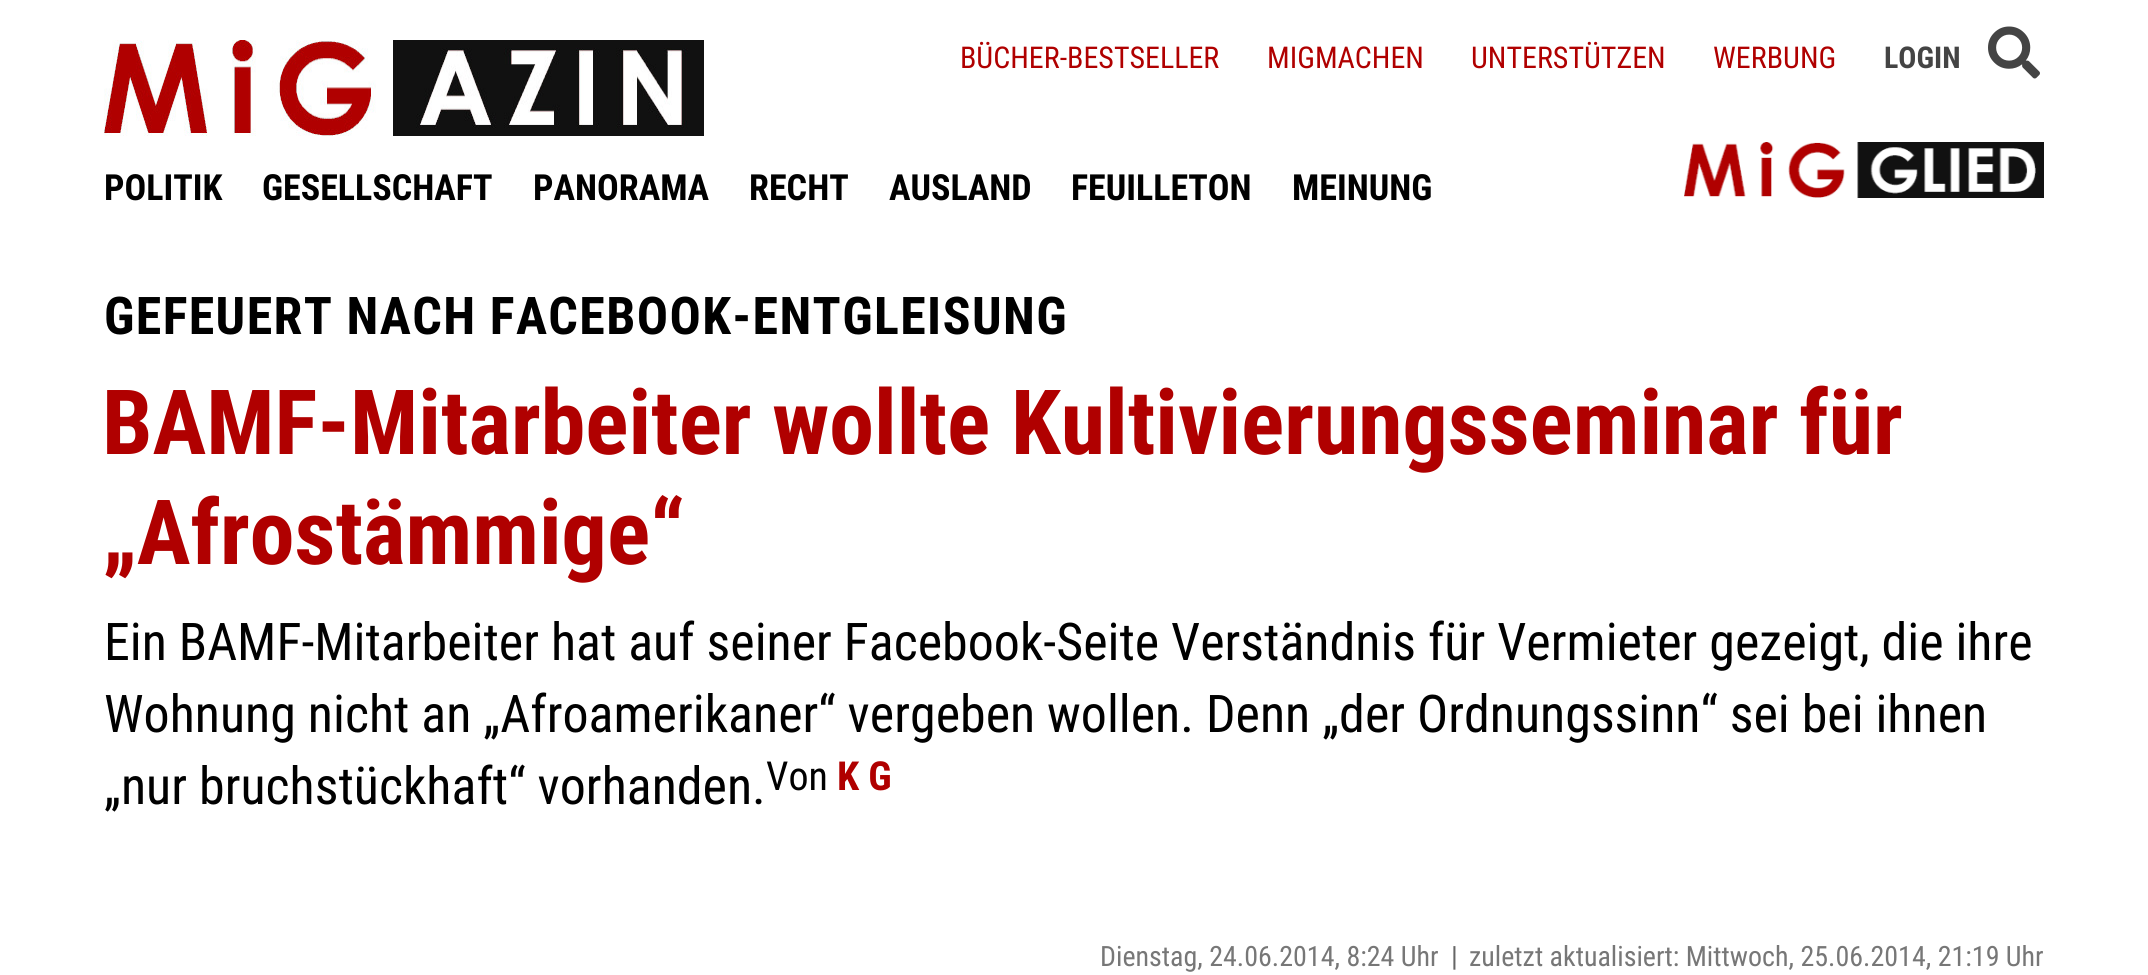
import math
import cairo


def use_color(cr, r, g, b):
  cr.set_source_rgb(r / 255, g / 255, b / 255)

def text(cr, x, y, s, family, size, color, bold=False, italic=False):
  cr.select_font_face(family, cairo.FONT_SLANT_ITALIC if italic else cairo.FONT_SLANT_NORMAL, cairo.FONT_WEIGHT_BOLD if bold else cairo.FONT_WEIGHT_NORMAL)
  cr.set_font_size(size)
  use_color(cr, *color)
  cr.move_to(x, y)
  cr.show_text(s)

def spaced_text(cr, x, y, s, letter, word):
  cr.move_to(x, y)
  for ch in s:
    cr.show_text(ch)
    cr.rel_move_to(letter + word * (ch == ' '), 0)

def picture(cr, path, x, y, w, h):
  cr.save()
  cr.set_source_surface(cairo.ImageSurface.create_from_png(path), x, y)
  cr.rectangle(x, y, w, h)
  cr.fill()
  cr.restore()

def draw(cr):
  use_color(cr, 255, 255, 255)
  cr.paint()
  picture(cr, "img_01.png", 1988, 26, 52, 53)
  picture(cr, "img_02.png", 104, 40, 600, 96)
  picture(cr, "img_03.png", 1684, 142, 360, 56)
  text(cr, 960, 68, "BÜCHER-BESTSELLER", "Roboto Condensed", 30, (176, 0, 0))
  text(cr, 1267, 68, "MIGMACHEN", "Roboto Condensed", 30, (176, 0, 0))
  text(cr, 1471, 68, "UNTERSTÜTZEN", "Roboto Condensed", 30, (176, 0, 0))
  text(cr, 1713, 68, "WERBUNG", "Roboto Condensed", 30, (176, 0, 0))
  text(cr, 1884, 68, "LOGIN", "Roboto Condensed", 30, (68, 68, 68), bold=True)
  text(cr, 104, 200, "POLITIK", "Roboto Condensed", 36, (0, 0, 0), bold=True)
  text(cr, 262, 200, "GESELLSCHAFT", "Roboto Condensed", 36, (0, 0, 0), bold=True)
  text(cr, 533, 200, "PANORAMA", "Roboto Condensed", 36, (0, 0, 0), bold=True)
  text(cr, 749, 200, "RECHT", "Roboto Condensed", 36, (0, 0, 0), bold=True)
  text(cr, 889, 200, "AUSLAND", "Roboto Condensed", 36, (0, 0, 0), bold=True)
  text(cr, 1071, 200, "FEUILLETON", "Roboto Condensed", 36, (0, 0, 0), bold=True)
  text(cr, 1292, 200, "MEINUNG", "Roboto Condensed", 36, (0, 0, 0), bold=True)
  cr.set_font_size(52)
  spaced_text(cr, 104, 334, "GEFEUERT NACH FACEBOOK-ENTGLEISUNG", 1.35, 0)
  text(cr, 102, 454, "BAMF-Mitarbeiter wollte Kultivierungsseminar für", "Roboto Condensed", 90, (176, 0, 0), bold=True)
  text(cr, 102, 564, "„Afrostämmige“", "Roboto Condensed", 90, (176, 0, 0), bold=True)
  text(cr, 104, 660, "Ein BAMF-Mitarbeiter hat auf seiner Facebook-Seite Verständnis für Vermieter gezeigt, die ihre", "Roboto Condensed", 52, (0, 0, 0))
  text(cr, 104, 732, "Wohnung nicht an „Afroamerikaner“ vergeben wollen. Denn „der Ordnungssinn“ sei bei ihnen", "Roboto Condensed", 52, (0, 0, 0))
  text(cr, 104, 804, "„nur bruchstückhaft“ vorhanden.", "Roboto Condensed", 52, (0, 0, 0))
  text(cr, 766, 790, "Von", "Roboto Condensed", 40, (0, 0, 0))
  text(cr, 837, 790, "K G", "Roboto Condensed", 40, (176, 0, 0), bold=True)
  text(cr, 1100, 966, "Dienstag, 24.06.2014, 8:24 Uhr", "Roboto Condensed", 28, (119, 119, 119))
  text(cr, 1451, 966, "|", "Roboto Condensed", 28, (102, 102, 102))
  text(cr, 1469, 966, "zuletzt aktualisiert: Mittwoch, 25.06.2014, 21:19 Uhr", "Roboto Condensed", 28, (119, 119, 119))


surface = cairo.ImageSurface(cairo.FORMAT_RGB24, 2148, 975)
cr = cairo.Context(surface)
options = cairo.FontOptions()
options.set_hint_metrics(cairo.HINT_METRICS_OFF)
options.set_hint_style(cairo.HINT_STYLE_NONE)
cr.set_font_options(options)
cr.set_miter_limit(4)
draw(cr)
surface.write_to_png("out.png")
